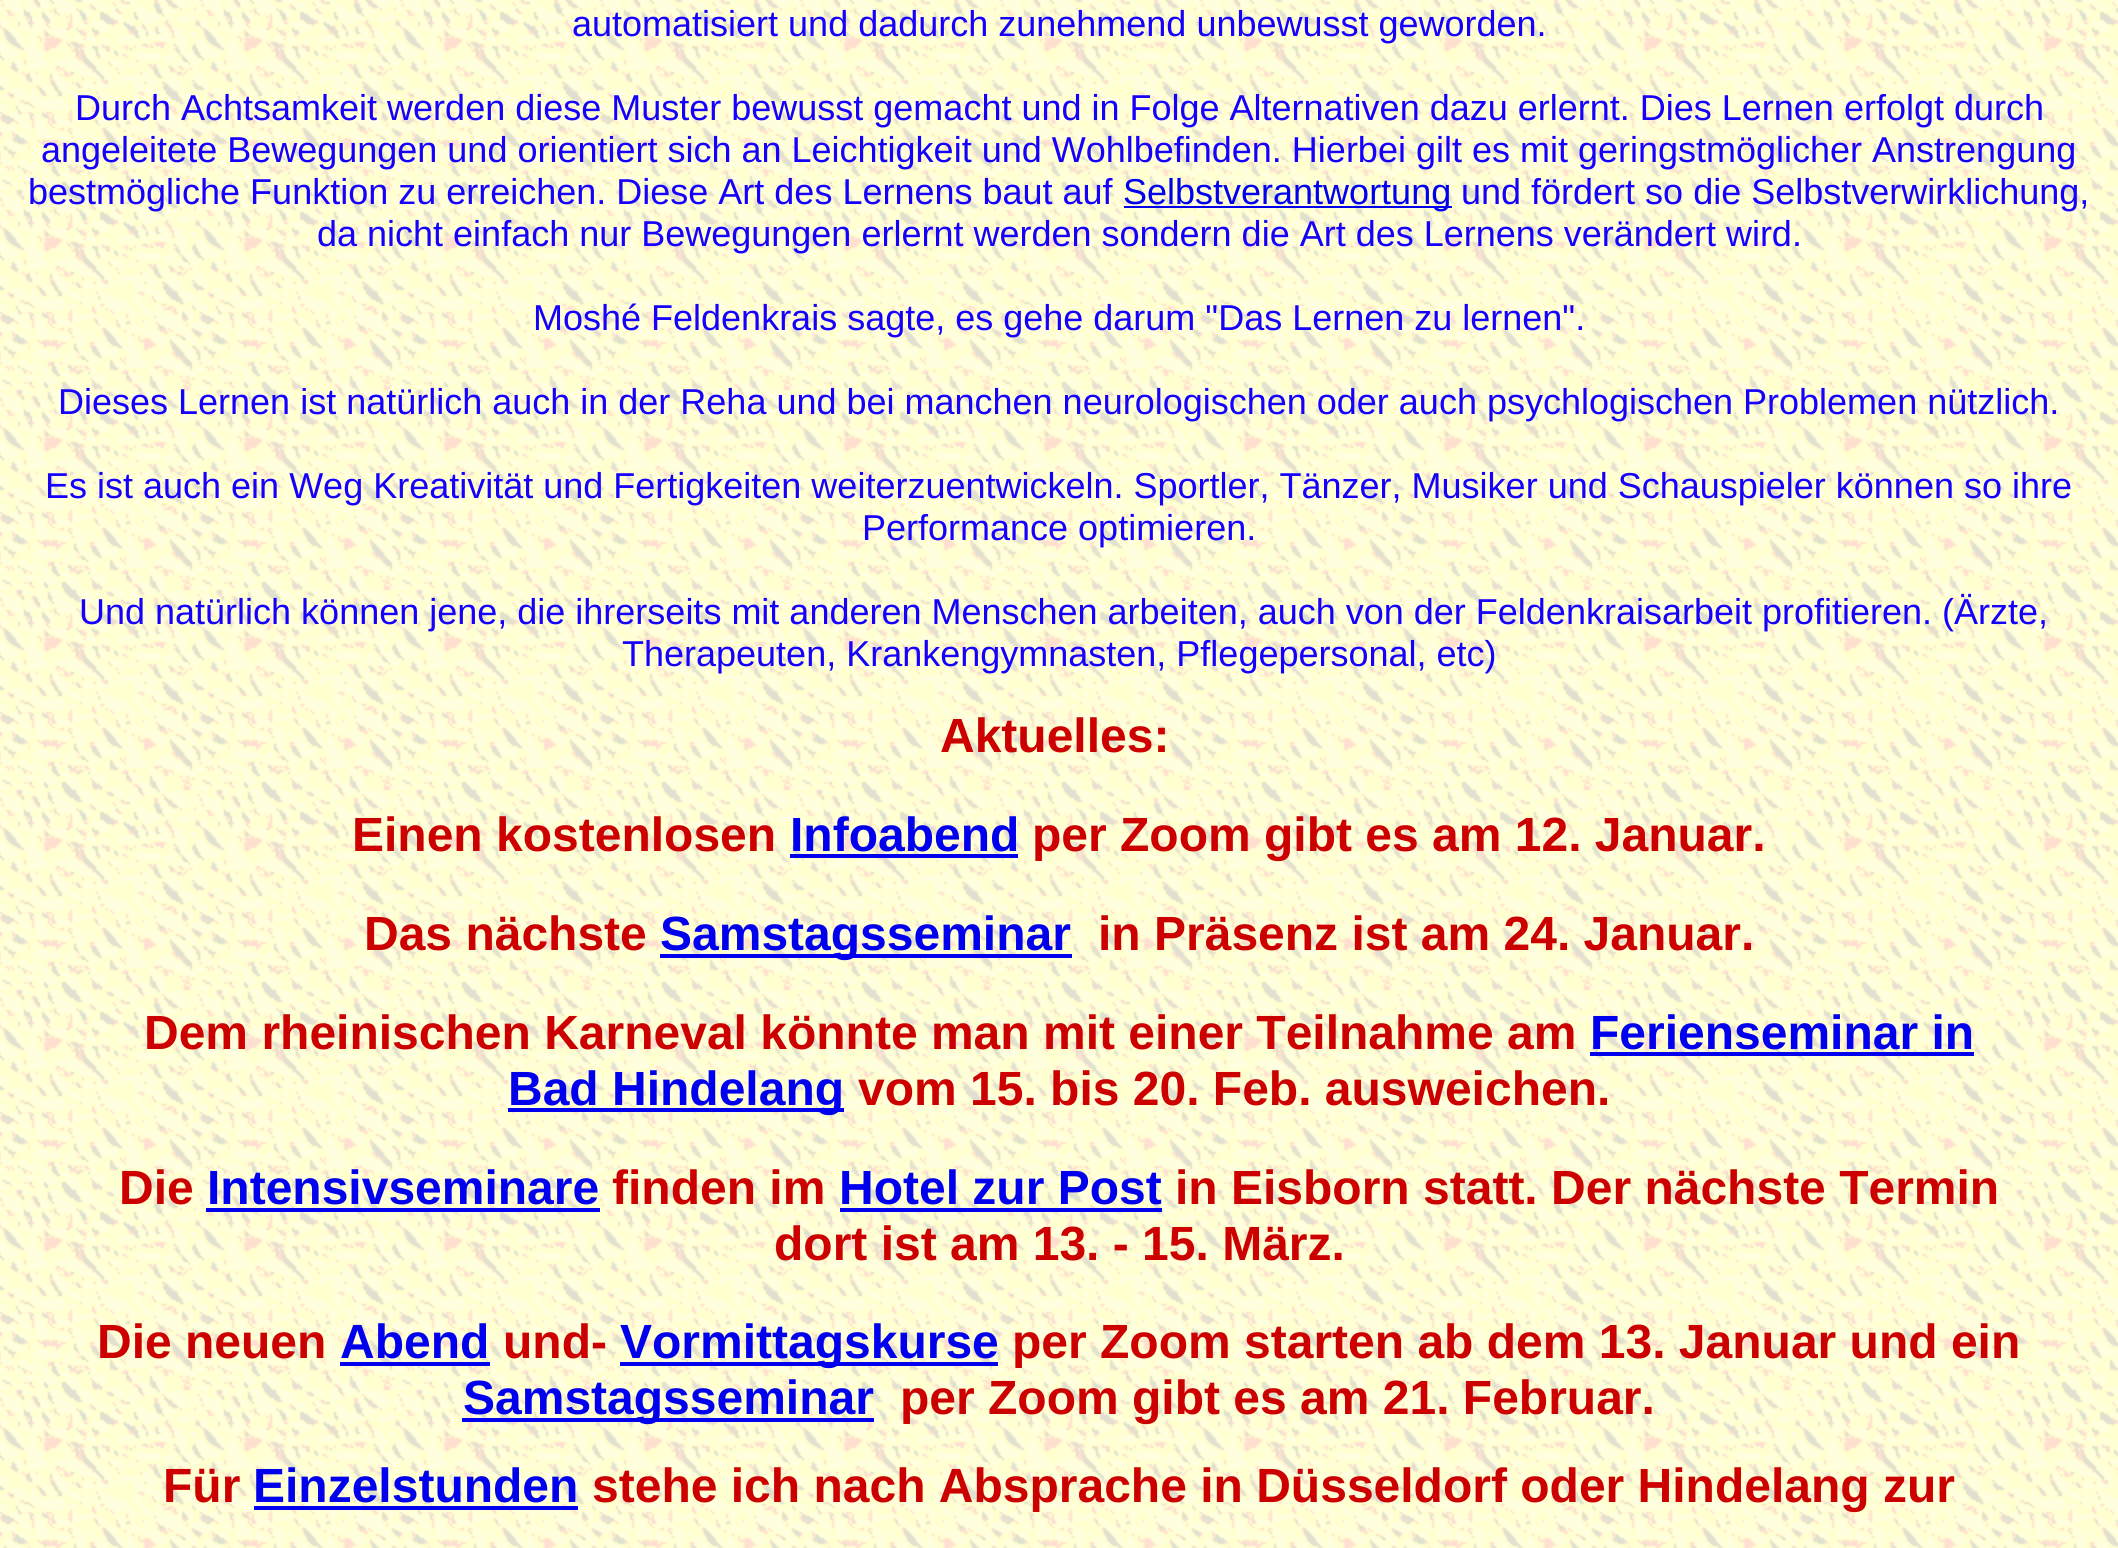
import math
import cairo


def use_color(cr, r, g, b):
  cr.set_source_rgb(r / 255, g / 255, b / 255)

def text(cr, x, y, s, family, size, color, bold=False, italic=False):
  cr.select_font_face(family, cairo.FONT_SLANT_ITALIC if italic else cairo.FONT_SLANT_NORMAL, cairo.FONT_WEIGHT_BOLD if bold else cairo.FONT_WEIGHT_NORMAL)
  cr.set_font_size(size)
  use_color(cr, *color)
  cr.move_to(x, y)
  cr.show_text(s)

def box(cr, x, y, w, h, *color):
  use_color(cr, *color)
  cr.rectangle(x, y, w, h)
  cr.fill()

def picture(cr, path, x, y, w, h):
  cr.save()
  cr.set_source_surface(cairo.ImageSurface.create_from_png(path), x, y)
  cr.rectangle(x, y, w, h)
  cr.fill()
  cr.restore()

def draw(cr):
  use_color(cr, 255, 255, 255)
  cr.paint()
  picture(cr, "img_01.png", 0, 0, 2118, 1548)
  box(cr, 1124, 206, 328, 2, 0, 0, 238)
  box(cr, 790, 854, 228, 4, 0, 0, 238)
  box(cr, 660, 954, 412, 4, 0, 0, 238)
  box(cr, 1590, 1052, 384, 4, 0, 0, 238)
  box(cr, 508, 1108, 336, 4, 0, 0, 238)
  box(cr, 206, 1208, 394, 4, 0, 0, 238)
  box(cr, 840, 1208, 322, 4, 0, 0, 238)
  box(cr, 340, 1362, 150, 4, 0, 0, 238)
  box(cr, 620, 1362, 378, 4, 0, 0, 238)
  box(cr, 462, 1418, 412, 4, 0, 0, 238)
  box(cr, 254, 1506, 324, 4, 0, 0, 238)
  text(cr, 572, 36, "automatisiert und dadurch zunehmend unbewusst geworden.", "Liberation Sans", 36, (21, 0, 255))
  text(cr, 75, 120, "Durch Achtsamkeit werden diese Muster bewusst gemacht und in Folge Alternativen dazu erlernt. Dies Lernen erfolgt durch", "Liberation Sans", 36, (21, 0, 255))
  text(cr, 41, 162, "angeleitete Bewegungen und orientiert sich an Leichtigkeit und Wohlbefinden. Hierbei gilt es mit geringstmöglicher Anstrengung", "Liberation Sans", 36, (21, 0, 255))
  text(cr, 28, 204, "bestmögliche Funktion zu erreichen. Diese Art des Lernens baut auf", "Liberation Sans", 36, (21, 0, 255))
  text(cr, 1123, 204, "Selbstverantwortung", "Liberation Sans", 36, (0, 0, 238))
  text(cr, 1461, 204, "und fördert so die Selbstverwirklichung,", "Liberation Sans", 36, (21, 0, 255))
  text(cr, 317, 246, "da nicht einfach nur Bewegungen erlernt werden sondern die Art des Lernens verändert wird.", "Liberation Sans", 36, (21, 0, 255))
  text(cr, 533, 330, "Moshé Feldenkrais sagte, es gehe darum \"Das Lernen zu lernen\".", "Liberation Sans", 36, (21, 0, 255))
  text(cr, 58, 414, "Dieses Lernen ist natürlich auch in der Reha und bei manchen neurologischen oder auch psychlogischen Problemen nützlich.", "Liberation Sans", 36, (21, 0, 255))
  text(cr, 45, 498, "Es ist auch ein Weg Kreativität und Fertigkeiten weiterzuentwickeln. Sportler, Tänzer, Musiker und Schauspieler können so ihre", "Liberation Sans", 36, (21, 0, 255))
  text(cr, 862, 540, "Performance optimieren.", "Liberation Sans", 36, (21, 0, 255))
  text(cr, 79, 624, "Und natürlich können jene, die ihrerseits mit anderen Menschen arbeiten, auch von der Feldenkraisarbeit profitieren. (Ärzte,", "Liberation Sans", 36, (21, 0, 255))
  text(cr, 622, 666, "Therapeuten, Krankengymnasten, Pflegepersonal, etc)", "Liberation Sans", 36, (21, 0, 255))
  text(cr, 940, 752, "Aktuelles:", "Liberation Sans", 48, (204, 0, 0), bold=True)
  text(cr, 352, 851, "Einen kostenlosen", "Liberation Sans", 48, (204, 0, 0), bold=True)
  text(cr, 790, 851, "Infoabend", "Liberation Sans", 48, (0, 0, 238), bold=True)
  text(cr, 1032, 851, "per Zoom gibt es am 12. Januar.", "Liberation Sans", 48, (204, 0, 0), bold=True)
  text(cr, 364, 950, "Das nächste", "Liberation Sans", 48, (204, 0, 0), bold=True)
  text(cr, 660, 950, "Samstagsseminar", "Liberation Sans", 48, (0, 0, 238), bold=True)
  text(cr, 1098, 950, "in Präsenz ist am 24. Januar.", "Liberation Sans", 48, (204, 0, 0), bold=True)
  text(cr, 144, 1049, "Dem rheinischen Karneval könnte man mit einer Teilnahme am", "Liberation Sans", 48, (204, 0, 0), bold=True)
  text(cr, 1590, 1049, "Ferienseminar in", "Liberation Sans", 48, (0, 0, 238), bold=True)
  text(cr, 508, 1105, "Bad Hindelang", "Liberation Sans", 48, (0, 0, 238), bold=True)
  text(cr, 858, 1105, "vom 15. bis 20. Feb. ausweichen.", "Liberation Sans", 48, (204, 0, 0), bold=True)
  text(cr, 119, 1204, "Die", "Liberation Sans", 48, (204, 0, 0), bold=True)
  text(cr, 207, 1204, "Intensivseminare", "Liberation Sans", 48, (0, 0, 238), bold=True)
  text(cr, 612, 1204, "finden im", "Liberation Sans", 48, (204, 0, 0), bold=True)
  text(cr, 839, 1204, "Hotel zur Post", "Liberation Sans", 48, (0, 0, 238), bold=True)
  text(cr, 1175, 1204, "in Eisborn statt. Der nächste Termin", "Liberation Sans", 48, (204, 0, 0), bold=True)
  text(cr, 774, 1260, "dort ist am 13. - 15. März.", "Liberation Sans", 48, (204, 0, 0), bold=True)
  text(cr, 97, 1358, "Die neuen", "Liberation Sans", 48, (204, 0, 0), bold=True)
  text(cr, 340, 1358, "Abend", "Liberation Sans", 48, (0, 0, 238), bold=True)
  text(cr, 503, 1358, "und-", "Liberation Sans", 48, (204, 0, 0), bold=True)
  text(cr, 620, 1358, "Vormittagskurse", "Liberation Sans", 48, (0, 0, 238), bold=True)
  text(cr, 1012, 1358, "per Zoom starten ab dem 13. Januar und ein", "Liberation Sans", 48, (204, 0, 0), bold=True)
  text(cr, 463, 1414, "Samstagsseminar", "Liberation Sans", 48, (0, 0, 238), bold=True)
  text(cr, 900, 1414, "per Zoom gibt es am 21. Februar.", "Liberation Sans", 48, (204, 0, 0), bold=True)
  text(cr, 163, 1502, "Für", "Liberation Sans", 48, (204, 0, 0), bold=True)
  text(cr, 253, 1502, "Einzelstunden", "Liberation Sans", 48, (0, 0, 238), bold=True)
  text(cr, 592, 1502, "stehe ich nach Absprache in Düsseldorf oder Hindelang zur", "Liberation Sans", 48, (204, 0, 0), bold=True)


surface = cairo.ImageSurface(cairo.FORMAT_RGB24, 2118, 1548)
cr = cairo.Context(surface)
options = cairo.FontOptions()
options.set_hint_metrics(cairo.HINT_METRICS_OFF)
options.set_hint_style(cairo.HINT_STYLE_NONE)
cr.set_font_options(options)
cr.set_miter_limit(4)
draw(cr)
surface.write_to_png("out.png")
